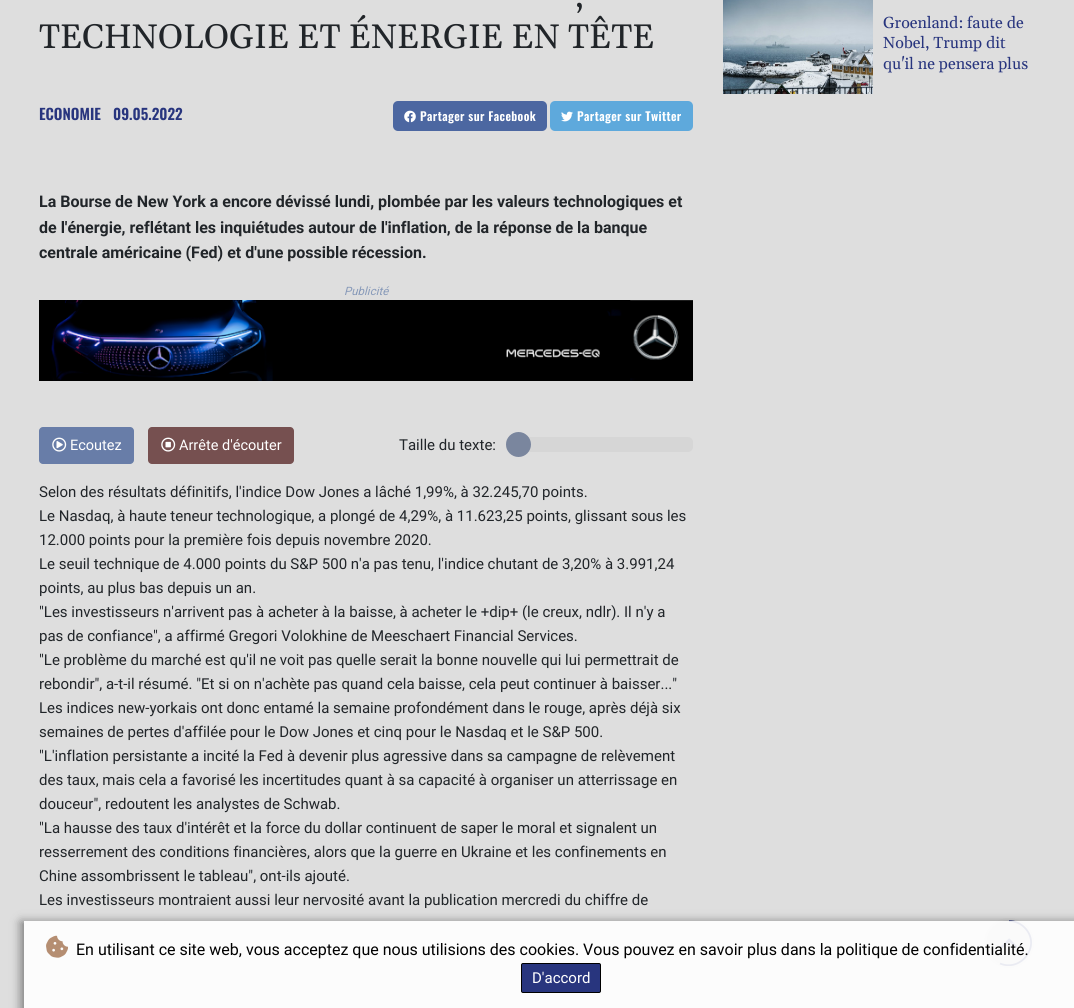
import math
import cairo


def use_color(cr, r, g, b):
  cr.set_source_rgb(r / 255, g / 255, b / 255)

def text(cr, x, y, s, family, size, color, bold=False, italic=False):
  cr.select_font_face(family, cairo.FONT_SLANT_ITALIC if italic else cairo.FONT_SLANT_NORMAL, cairo.FONT_WEIGHT_BOLD if bold else cairo.FONT_WEIGHT_NORMAL)
  cr.set_font_size(size)
  use_color(cr, *color)
  cr.move_to(x, y)
  cr.show_text(s)

def spaced_text(cr, x, y, s, letter, word):
  cr.move_to(x, y)
  for ch in s:
    cr.show_text(ch)
    cr.rel_move_to(letter + word * (ch == ' '), 0)

def round_rect(cr, x, y, w, h, r):
  cr.new_sub_path()
  for i, (u, v) in enumerate([(x + w - r, y + h - r), (x + r, y + h - r), (x + r, y + r), (x + w - r, y + r)]):
    cr.arc(u, v, r, i * math.pi / 2, (i + 1) * math.pi / 2)
  cr.close_path()

def shadow(cr, x, y, w, h, r, blur, alpha):
  cr.push_group_with_content(cairo.CONTENT_ALPHA)
  cr.set_operator(cairo.OPERATOR_SOURCE)
  for i in range(15, -16, -2):
    e = blur * i / 6
    if min(w, h) + 2 * e > 0:
      cr.set_source_rgba(0, 0, 0, alpha * math.erfc((i - 1) / 8.5) / 2)
      round_rect(cr, x - e, y - e, w + 2 * e, h + 2 * e, max(0, min(r + e + blur * .6, min(w, h) / 2 + e)))
      cr.fill()
  cr.mask(cr.pop_group())

def picture(cr, path, x, y, w, h):
  cr.save()
  cr.set_source_surface(cairo.ImageSurface.create_from_png(path), x, y)
  cr.rectangle(x, y, w, h)
  cr.fill()
  cr.restore()

def draw(cr):
  use_color(cr, 222, 222, 222)
  cr.paint()
  use_color(cr, 76, 103, 161)
  round_rect(cr, 393, 101, 154, 30, 5)
  cr.fill()
  picture(cr, "img_01.png", 404, 110, 12, 13)
  use_color(cr, 94, 169, 220)
  round_rect(cr, 550, 101, 143, 30, 5)
  cr.fill()
  picture(cr, "img_02.png", 561, 111, 12, 11)
  picture(cr, "img_03.png", 39, 300, 654, 81)
  use_color(cr, 104, 125, 168)
  round_rect(cr, 39, 427, 95, 37, 4)
  cr.fill()
  picture(cr, "img_04.png", 52, 437, 15, 15)
  use_color(cr, 118, 80, 80)
  round_rect(cr, 148, 427, 146, 37, 4)
  cr.fill()
  picture(cr, "img_05.png", 161, 437, 15, 15)
  use_color(cr, 214, 214, 214)
  round_rect(cr, 506, 437, 187, 15, 5)
  cr.fill()
  use_color(cr, 122, 134, 158)
  cr.arc(518.5, 444.5, 12.5, 0, 2 * math.pi)
  cr.fill()
  picture(cr, "img_06.png", 723, 0, 150, 94)
  use_color(cr, 208, 208, 208)
  cr.arc(1009, 943, 25, 0, 2 * math.pi)
  cr.fill()
  cr.arc(1009, 943, 24, 0, 2 * math.pi)
  cr.set_source_rgba(1, 1, 1, 0.2)
  cr.stroke()
  cr.save()
  cr.rectangle(986, 920, 46, 46)
  cr.clip()
  cr.new_path()
  cr.move_to(1009, 921)
  cr.curve_to(1015, 921, 1020.5, 923.5, 1024.5, 927.5)
  cr.curve_to(1042, 945, 1021.5, 972.5, 1000, 963.5)
  use_color(cr, 40, 53, 126)
  cr.set_line_width(1.8)
  cr.stroke()
  cr.restore()
  picture(cr, "img_07.png", 1001, 938, 17, 11)
  cr.save()
  cr.set_fill_rule(cairo.FILL_RULE_EVEN_ODD)
  cr.new_path()
  cr.move_to(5, 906)
  cr.line_to(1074, 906)
  cr.line_to(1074, 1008)
  cr.line_to(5, 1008)
  cr.close_path()
  cr.move_to(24, 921)
  cr.line_to(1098, 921)
  cr.line_to(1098, 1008)
  cr.line_to(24, 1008)
  cr.close_path()
  cr.clip()
  use_color(cr, 121, 121, 121)
  shadow(cr, 21, 922, 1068, 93, 0, 5, 1)
  cr.restore()
  cr.set_source_rgba(1, 1, 1, 0.9)
  cr.rectangle(24, 921, 1050, 87)
  cr.fill()
  picture(cr, "img_08.png", 46, 935, 22, 23)
  use_color(cr, 40, 53, 126)
  round_rect(cr, 521.5, 963.5, 79, 29, 1.5)
  cr.fill_preserve()
  use_color(cr, 0, 0, 0)
  cr.set_line_width(1)
  cr.stroke()
  text(cr, 575, 7, ",", "Gelasio", 34, (33, 37, 41))
  text(cr, 39, 48, "TECHNOLOGIE ET ÉNERGIE EN TÊTE", "Gelasio", 34, (33, 37, 41))
  text(cr, 39, 120, "ECONOMIE", "Oswald SemiBold", 15, (40, 53, 126))
  text(cr, 113, 120, "09.05.2022", "Oswald SemiBold", 15, (40, 53, 126))
  cr.set_font_size(12)
  use_color(cr, 255, 255, 255)
  spaced_text(cr, 420, 121, "Partager sur Facebook", 0.4, 0)
  spaced_text(cr, 577, 121, "Partager sur Twitter", 0.4, 0)
  text(cr, 39, 207, "La Bourse de New York a encore dévissé lundi, plombée par les valeurs technologiques et", "Roboto", 16, (33, 37, 41), bold=True)
  text(cr, 39, 233, "de l'énergie, reflétant les inquiétudes autour de l'inflation, de la réponse de la banque", "Roboto", 16, (33, 37, 41), bold=True)
  text(cr, 39, 258, "centrale américaine (Fed) et d'une possible récession.", "Roboto", 16, (33, 37, 41), bold=True)
  text(cr, 344, 295, "Publicité", "Roboto", 11.5, (136, 154, 185), italic=True)
  text(cr, 70, 450, "Ecoutez", "Roboto", 14.5, (255, 255, 255))
  text(cr, 179, 450, "Arrête d'écouter", "Roboto", 14.5, (255, 255, 255))
  text(cr, 399, 450, "Taille du texte:", "Roboto", 15, (33, 37, 41))
  text(cr, 39, 497, "Selon des résultats définitifs, l'indice Dow Jones a lâché 1,99%, à 32.245,70 points.", "Roboto", 15, (33, 37, 41))
  text(cr, 39, 521, "Le Nasdaq, à haute teneur technologique, a plongé de 4,29%, à 11.623,25 points, glissant sous les", "Roboto", 15, (33, 37, 41))
  text(cr, 39, 545, "12.000 points pour la première fois depuis novembre 2020.", "Roboto", 15, (33, 37, 41))
  text(cr, 39, 569, "Le seuil technique de 4.000 points du S&P 500 n'a pas tenu, l'indice chutant de 3,20% à 3.991,24", "Roboto", 15, (33, 37, 41))
  text(cr, 39, 593, "points, au plus bas depuis un an.", "Roboto", 15, (33, 37, 41))
  text(cr, 39, 617, "\"Les investisseurs n'arrivent pas à acheter à la baisse, à acheter le +dip+ (le creux, ndlr). Il n'y a", "Roboto", 15, (33, 37, 41))
  text(cr, 39, 641, "pas de confiance\", a affirmé Gregori Volokhine de Meeschaert Financial Services.", "Roboto", 15, (33, 37, 41))
  text(cr, 39, 665, "\"Le problème du marché est qu'il ne voit pas quelle serait la bonne nouvelle qui lui permettrait de", "Roboto", 15, (33, 37, 41))
  text(cr, 39, 689, "rebondir\", a-t-il résumé. \"Et si on n'achète pas quand cela baisse, cela peut continuer à baisser...\"", "Roboto", 15, (33, 37, 41))
  text(cr, 39, 713, "Les indices new-yorkais ont donc entamé la semaine profondément dans le rouge, après déjà six", "Roboto", 15, (33, 37, 41))
  text(cr, 39, 737, "semaines de pertes d'affilée pour le Dow Jones et cinq pour le Nasdaq et le S&P 500.", "Roboto", 15, (33, 37, 41))
  text(cr, 39, 761, "\"L'inflation persistante a incité la Fed à devenir plus agressive dans sa campagne de relèvement", "Roboto", 15, (33, 37, 41))
  text(cr, 39, 785, "des taux, mais cela a favorisé les incertitudes quant à sa capacité à organiser un atterrissage en", "Roboto", 15, (33, 37, 41))
  text(cr, 39, 809, "douceur\", redoutent les analystes de Schwab.", "Roboto", 15, (33, 37, 41))
  text(cr, 39, 833, "\"La hausse des taux d'intérêt et la force du dollar continuent de saper le moral et signalent un", "Roboto", 15, (33, 37, 41))
  text(cr, 39, 857, "resserrement des conditions financières, alors que la guerre en Ukraine et les confinements en", "Roboto", 15, (33, 37, 41))
  text(cr, 39, 881, "Chine assombrissent le tableau\", ont-ils ajouté.", "Roboto", 15, (33, 37, 41))
  text(cr, 39, 905, "Les investisseurs montraient aussi leur nervosité avant la publication mercredi du chiffre de", "Roboto", 15, (33, 37, 41))
  text(cr, 883, 28, "Groenland: faute de", "Gelasio", 16, (40, 53, 126))
  text(cr, 883, 48, "Nobel, Trump dit", "Gelasio", 16, (40, 53, 126))
  text(cr, 883, 69, "qu'il ne pensera plus", "Gelasio", 16, (40, 53, 126))
  text(cr, 76, 955, "En utilisant ce site web, vous acceptez que nous utilisions des cookies. Vous pouvez en savoir plus dans la politique de confidentialité.", "Roboto", 16, (0, 0, 0))
  text(cr, 532, 983, "D'accord", "Roboto", 15, (255, 255, 255))


surface = cairo.ImageSurface(cairo.FORMAT_RGB24, 1074, 1008)
cr = cairo.Context(surface)
options = cairo.FontOptions()
options.set_hint_metrics(cairo.HINT_METRICS_OFF)
options.set_hint_style(cairo.HINT_STYLE_NONE)
cr.set_font_options(options)
cr.set_miter_limit(4)
draw(cr)
surface.write_to_png("out.png")
